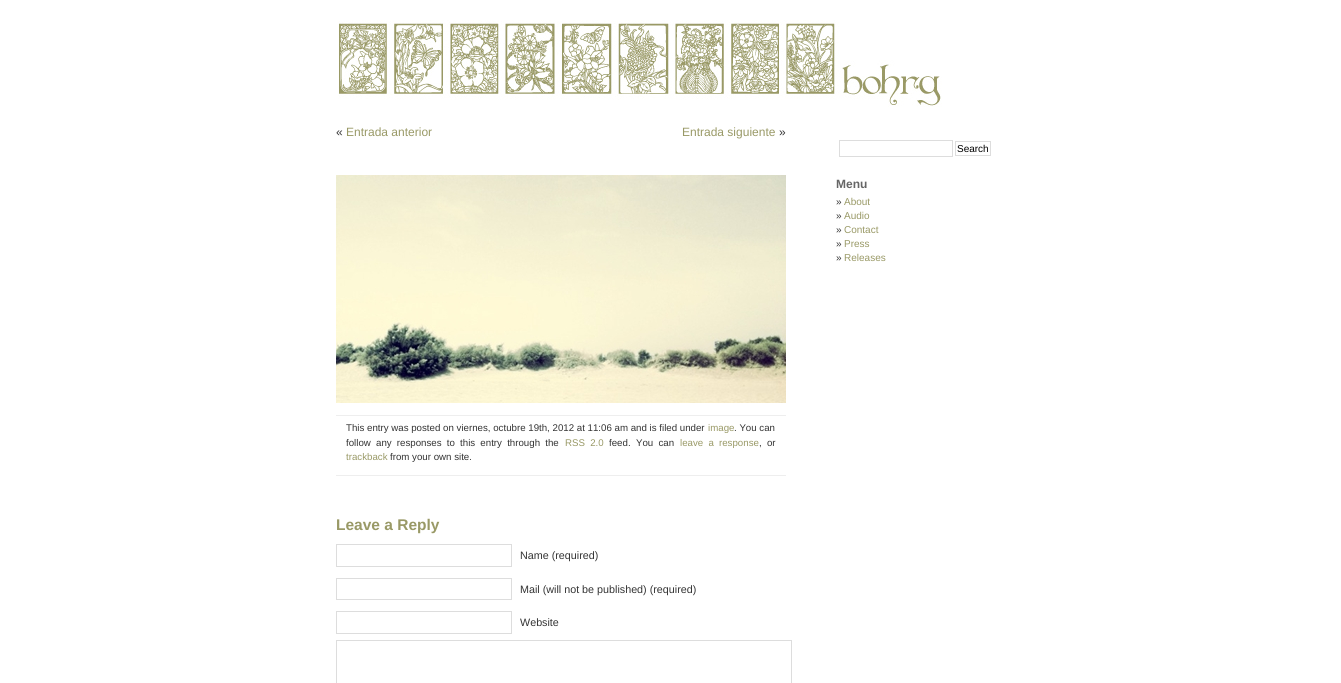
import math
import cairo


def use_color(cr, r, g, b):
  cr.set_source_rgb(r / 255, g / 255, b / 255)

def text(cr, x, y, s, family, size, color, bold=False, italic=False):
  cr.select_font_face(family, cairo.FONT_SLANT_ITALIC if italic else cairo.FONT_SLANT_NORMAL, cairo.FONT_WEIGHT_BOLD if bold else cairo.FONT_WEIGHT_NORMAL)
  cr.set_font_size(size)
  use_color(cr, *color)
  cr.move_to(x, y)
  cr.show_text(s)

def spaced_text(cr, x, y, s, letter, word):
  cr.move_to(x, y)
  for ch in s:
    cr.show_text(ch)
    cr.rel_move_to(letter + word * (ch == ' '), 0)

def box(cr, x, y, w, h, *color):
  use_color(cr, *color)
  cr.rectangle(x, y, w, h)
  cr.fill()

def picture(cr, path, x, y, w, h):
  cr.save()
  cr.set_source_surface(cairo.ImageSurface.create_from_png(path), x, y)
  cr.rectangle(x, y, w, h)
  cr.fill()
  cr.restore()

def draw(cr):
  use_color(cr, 255, 255, 255)
  cr.paint()
  picture(cr, "img_01.png", 338, 20, 604, 87)
  picture(cr, "img_02.png", 336, 175, 450, 228)
  box(cr, 336, 415, 450, 1, 238, 238, 238)
  box(cr, 336, 475, 450, 1, 238, 238, 238)
  cr.rectangle(336.5, 544.5, 175, 22)
  use_color(cr, 221, 221, 221)
  cr.set_line_width(1)
  cr.stroke()
  cr.rectangle(336.5, 578.5, 175, 21)
  cr.stroke()
  cr.rectangle(336.5, 611.5, 175, 22)
  cr.stroke()
  cr.rectangle(336.5, 640.5, 455, 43)
  cr.stroke()
  cr.rectangle(839.5, 140.5, 113, 16)
  cr.stroke()
  cr.rectangle(955.5, 141.5, 35, 14)
  cr.stroke()
  text(cr, 336, 136, "«", "Liberation Sans", 12, (51, 51, 51))
  text(cr, 346, 136, "Entrada anterior", "Liberation Sans", 12, (153, 153, 102))
  text(cr, 682, 136, "Entrada siguiente", "Liberation Sans", 12, (153, 153, 102))
  text(cr, 779, 136, "»", "Liberation Sans", 12, (51, 51, 51))
  text(cr, 346, 431, "This entry was posted on viernes, octubre 19th, 2012 at 11:06 am and is filed under", "Liberation Sans", 9.7, (51, 51, 51))
  text(cr, 708, 431, "image", "Liberation Sans", 9.7, (153, 153, 102))
  text(cr, 734, 431, ". You can", "Liberation Sans", 9.7, (51, 51, 51))
  spaced_text(cr, 346, 446, "follow any responses to this entry through the", 0, 2.5)
  use_color(cr, 153, 153, 102)
  spaced_text(cr, 565, 446, "RSS 2.0", 0, 2.5)
  text(cr, 609, 446, "feed.", "Liberation Sans", 9.7, (51, 51, 51))
  spaced_text(cr, 636, 446, "You can", 0, 2.5)
  use_color(cr, 153, 153, 102)
  spaced_text(cr, 680, 446, "leave a response", 0, 2.5)
  use_color(cr, 51, 51, 51)
  spaced_text(cr, 759, 446, ", or", 0, 2.5)
  text(cr, 346, 460, "trackback", "Liberation Sans", 9.7, (153, 153, 102))
  text(cr, 390, 460, "from your own site.", "Liberation Sans", 9.7, (51, 51, 51))
  text(cr, 336, 530, "Leave a Reply", "Liberation Sans", 15.5, (153, 153, 102), bold=True)
  text(cr, 520, 559, "Name (required)", "Liberation Sans", 10.75, (51, 51, 51))
  text(cr, 520, 593, "Mail (will not be published) (required)", "Liberation Sans", 10.75, (51, 51, 51))
  text(cr, 520, 626, "Website", "Liberation Sans", 10.75, (51, 51, 51))
  text(cr, 957, 152, "Search", "Liberation Sans", 10, (0, 0, 0))
  text(cr, 836, 188, "Menu", "Liberation Sans", 12, (102, 102, 102), bold=True)
  text(cr, 836, 205, "»", "Liberation Sans", 10, (51, 51, 51))
  text(cr, 844, 205, "About", "Liberation Sans", 10, (153, 153, 102))
  text(cr, 836, 219, "»", "Liberation Sans", 10, (51, 51, 51))
  text(cr, 844, 219, "Audio", "Liberation Sans", 10, (153, 153, 102))
  text(cr, 836, 233, "»", "Liberation Sans", 10, (51, 51, 51))
  text(cr, 844, 233, "Contact", "Liberation Sans", 10, (153, 153, 102))
  text(cr, 836, 247, "»", "Liberation Sans", 10, (51, 51, 51))
  text(cr, 844, 247, "Press", "Liberation Sans", 10, (153, 153, 102))
  text(cr, 836, 261, "»", "Liberation Sans", 10, (51, 51, 51))
  text(cr, 844, 261, "Releases", "Liberation Sans", 10, (153, 153, 102))


surface = cairo.ImageSurface(cairo.FORMAT_RGB24, 1341, 683)
cr = cairo.Context(surface)
options = cairo.FontOptions()
options.set_hint_metrics(cairo.HINT_METRICS_OFF)
options.set_hint_style(cairo.HINT_STYLE_NONE)
cr.set_font_options(options)
cr.set_miter_limit(4)
draw(cr)
surface.write_to_png("out.png")
